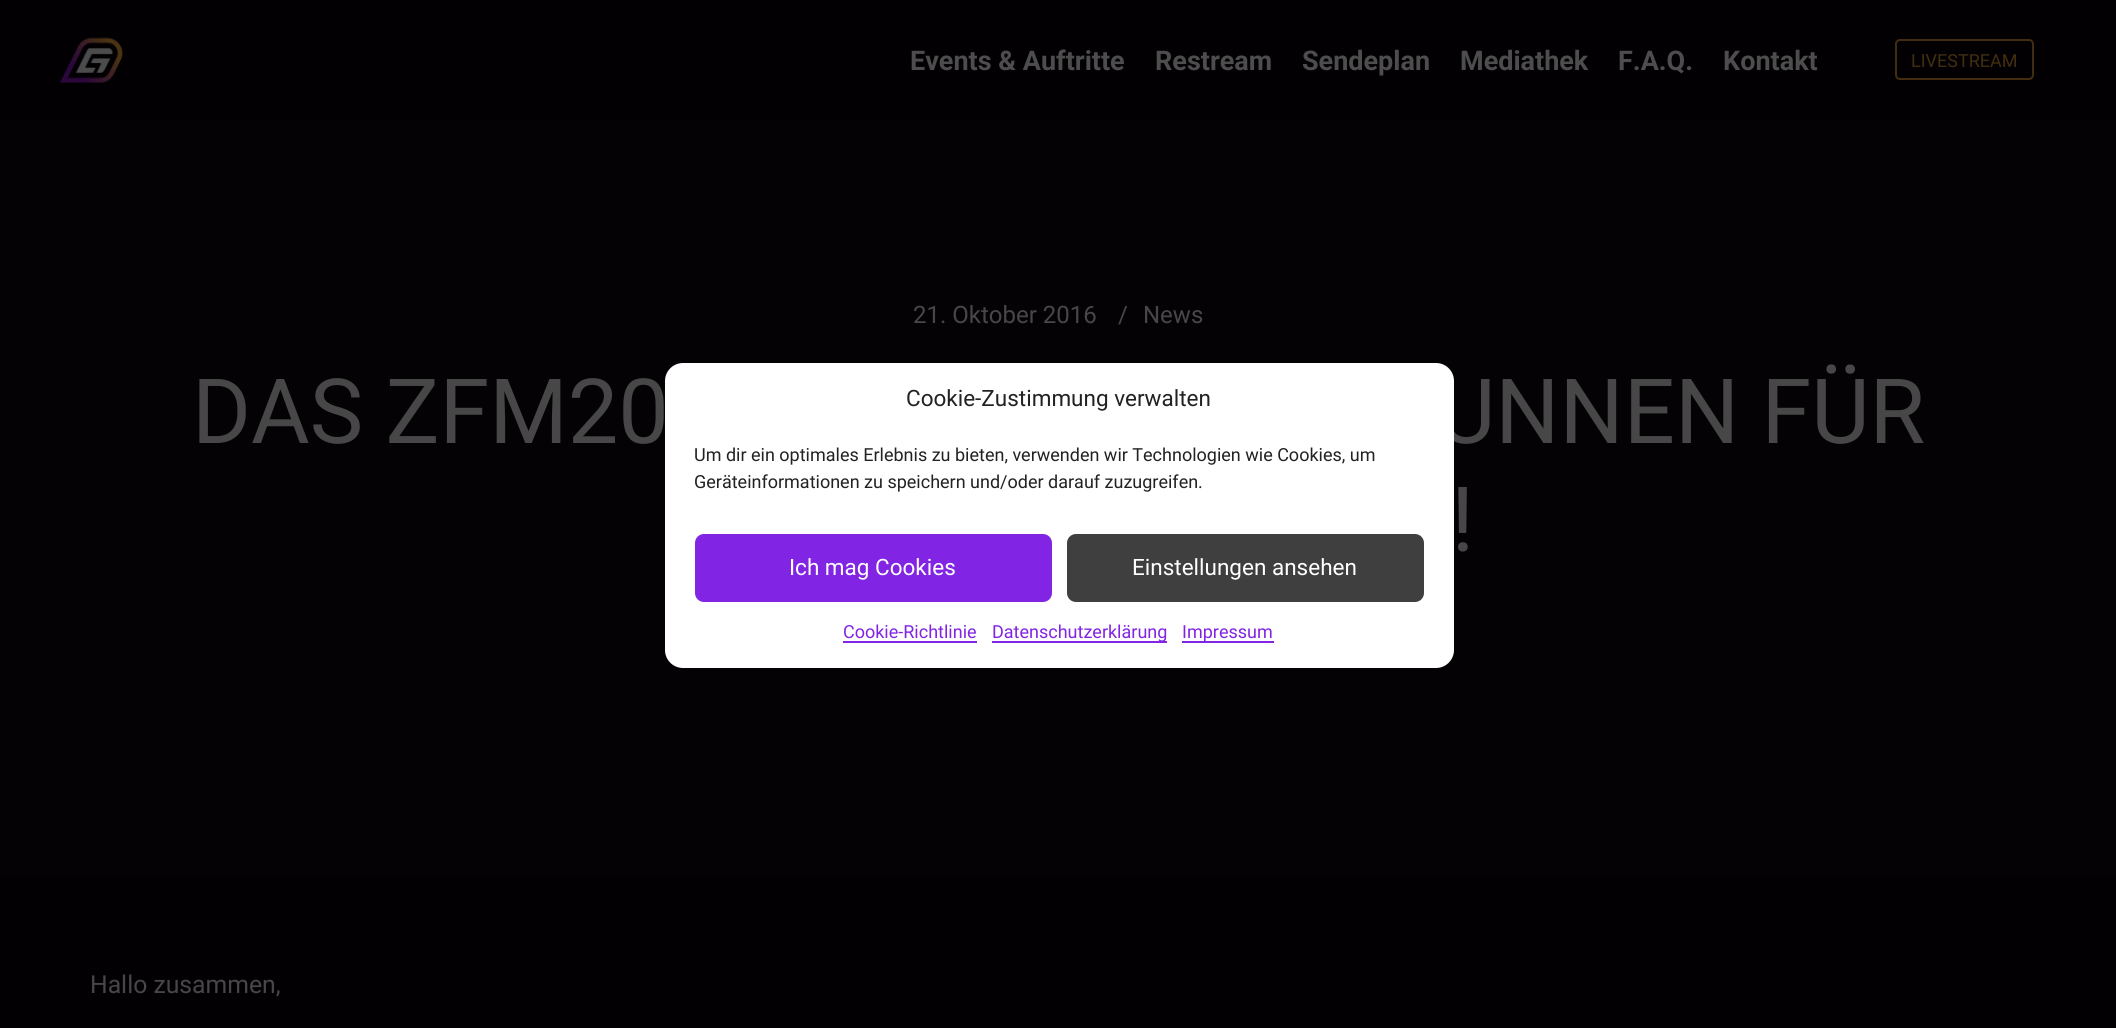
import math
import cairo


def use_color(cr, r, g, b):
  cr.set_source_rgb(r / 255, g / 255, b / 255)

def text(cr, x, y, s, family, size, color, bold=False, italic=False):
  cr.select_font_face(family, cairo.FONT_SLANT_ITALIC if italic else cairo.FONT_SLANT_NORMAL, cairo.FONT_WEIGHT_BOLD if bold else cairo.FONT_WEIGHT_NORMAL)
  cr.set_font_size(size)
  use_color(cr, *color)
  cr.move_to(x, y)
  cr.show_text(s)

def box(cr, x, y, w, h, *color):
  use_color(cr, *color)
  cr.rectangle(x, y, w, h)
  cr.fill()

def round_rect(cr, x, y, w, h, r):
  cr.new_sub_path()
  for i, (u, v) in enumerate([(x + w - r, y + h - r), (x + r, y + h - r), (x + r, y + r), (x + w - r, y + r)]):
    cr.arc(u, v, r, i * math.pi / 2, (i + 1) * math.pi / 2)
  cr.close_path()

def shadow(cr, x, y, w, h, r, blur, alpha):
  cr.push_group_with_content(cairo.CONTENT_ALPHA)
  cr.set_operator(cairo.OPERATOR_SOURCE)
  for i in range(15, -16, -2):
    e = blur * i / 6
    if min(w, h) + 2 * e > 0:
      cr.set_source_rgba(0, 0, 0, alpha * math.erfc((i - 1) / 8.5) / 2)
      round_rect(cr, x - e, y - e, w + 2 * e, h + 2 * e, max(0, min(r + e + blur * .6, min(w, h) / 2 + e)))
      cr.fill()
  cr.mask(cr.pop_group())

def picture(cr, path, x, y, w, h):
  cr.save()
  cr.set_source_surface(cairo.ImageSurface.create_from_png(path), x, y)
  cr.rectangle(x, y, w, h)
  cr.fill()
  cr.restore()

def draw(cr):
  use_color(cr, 2, 0, 3)
  cr.paint()
  picture(cr, "img_01.png", 60, 37, 63, 46)
  round_rect(cr, 1896, 40, 137, 39, 4)
  use_color(cr, 66, 46, 15)
  cr.stroke()
  box(cr, 0, 120, 2116, 755, 5, 2, 6)
  use_color(cr, 0, 0, 0)
  shadow(cr, 665, 372, 789, 305, 18, 4.5, 0.23)
  text(cr, 910, 70, "Events & Auftritte", "Roboto", 27, (77, 77, 77), bold=True)
  text(cr, 1155, 70, "Restream", "Roboto", 27, (77, 77, 77), bold=True)
  text(cr, 1302, 70, "Sendeplan", "Roboto", 27, (77, 77, 77), bold=True)
  text(cr, 1460, 70, "Mediathek", "Roboto", 27, (77, 77, 77), bold=True)
  text(cr, 1618, 70, "F.A.Q.", "Roboto", 27, (77, 77, 77), bold=True)
  text(cr, 1723, 70, "Kontakt", "Roboto", 27, (77, 77, 77), bold=True)
  text(cr, 1911, 67, "LIVESTREAM", "Roboto", 18, (66, 46, 15))
  text(cr, 913, 323, "21. Oktober 2016", "Roboto", 24, (71, 71, 71))
  text(cr, 1118, 323, "/", "Roboto", 24, (71, 71, 71))
  text(cr, 1143, 323, "News", "Roboto", 24, (71, 71, 71))
  text(cr, 192, 443, "DAS ZFM20", "Roboto", 90, (71, 71, 71))
  text(cr, 1437, 443, "UNNEN FÜR", "Roboto", 90, (71, 71, 71))
  text(cr, 1451, 551, "!", "Roboto", 90, (71, 71, 71))
  text(cr, 90, 993, "Hallo zusammen,", "Roboto", 24.75, (71, 71, 71))
  use_color(cr, 255, 255, 255)
  round_rect(cr, 665, 363, 789, 305, 18)
  cr.fill()
  text(cr, 906, 406, "Cookie-Zustimmung verwalten", "Roboto", 22.5, (34, 34, 34))
  text(cr, 694, 461, "Um dir ein optimales Erlebnis zu bieten, verwenden wir Technologien wie Cookies, um", "Roboto", 18, (34, 34, 34))
  cr.save()
  cr.rectangle(695, 443, 729, 61)
  cr.clip()
  text(cr, 694, 488, "Geräteinformationen zu speichern und/oder darauf zuzugreifen.", "Roboto", 18, (34, 34, 34))
  cr.restore()
  use_color(cr, 130, 36, 227)
  round_rect(cr, 696, 535, 355, 66, 8)
  cr.fill_preserve()
  cr.stroke()
  text(cr, 789, 575, "Ich mag Cookies", "Roboto", 22.5, (255, 255, 255))
  use_color(cr, 63, 63, 63)
  round_rect(cr, 1068, 535, 355, 66, 8)
  cr.fill_preserve()
  cr.stroke()
  text(cr, 1132, 575, "Einstellungen ansehen", "Roboto", 22.5, (255, 255, 255))
  text(cr, 843, 638, "Cookie-Richtlinie", "Roboto", 18, (130, 36, 227))
  box(cr, 843, 641, 134, 2, 130, 36, 227)
  box(cr, 992, 641, 175, 2, 130, 36, 227)
  text(cr, 992, 638, "Datenschutzerklärung", "Roboto", 18, (130, 36, 227))
  box(cr, 1182, 641, 92, 2, 130, 36, 227)
  text(cr, 1182, 638, "Impressum", "Roboto", 18, (130, 36, 227))


surface = cairo.ImageSurface(cairo.FORMAT_RGB24, 2116, 1028)
cr = cairo.Context(surface)
options = cairo.FontOptions()
options.set_hint_metrics(cairo.HINT_METRICS_OFF)
options.set_hint_style(cairo.HINT_STYLE_NONE)
cr.set_font_options(options)
cr.set_miter_limit(4)
draw(cr)
surface.write_to_png("out.png")
